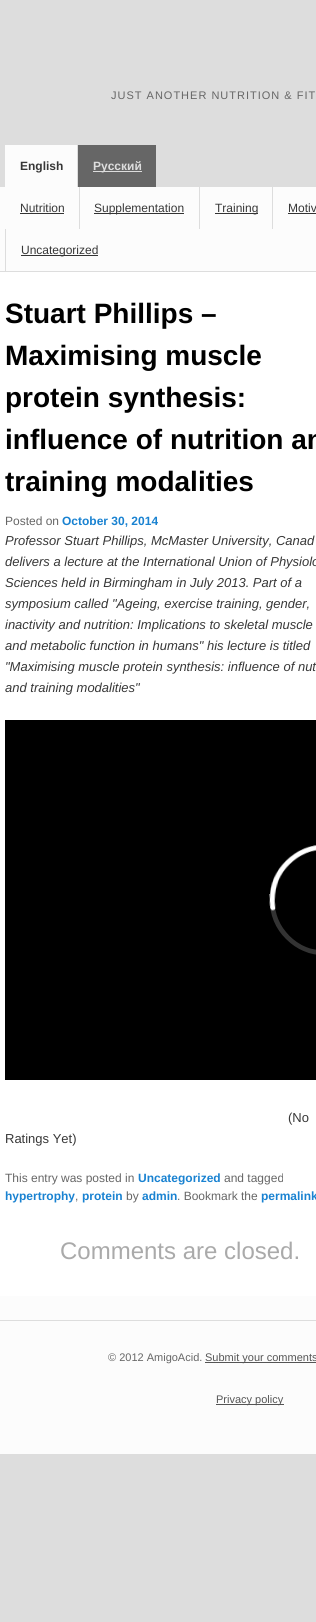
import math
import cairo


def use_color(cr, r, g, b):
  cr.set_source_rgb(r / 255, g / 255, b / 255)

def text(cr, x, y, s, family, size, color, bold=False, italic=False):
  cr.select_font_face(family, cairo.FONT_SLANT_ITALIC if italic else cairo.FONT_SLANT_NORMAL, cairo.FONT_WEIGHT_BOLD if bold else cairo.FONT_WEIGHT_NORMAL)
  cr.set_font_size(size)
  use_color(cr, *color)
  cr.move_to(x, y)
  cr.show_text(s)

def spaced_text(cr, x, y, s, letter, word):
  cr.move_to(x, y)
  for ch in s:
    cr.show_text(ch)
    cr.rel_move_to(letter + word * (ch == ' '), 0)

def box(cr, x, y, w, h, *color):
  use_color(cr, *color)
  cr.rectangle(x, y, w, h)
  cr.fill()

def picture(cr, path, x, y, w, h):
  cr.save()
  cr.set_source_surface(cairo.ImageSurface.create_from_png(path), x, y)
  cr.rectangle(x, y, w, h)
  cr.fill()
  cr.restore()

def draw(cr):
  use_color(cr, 221, 221, 221)
  cr.paint()
  box(cr, 5, 145, 72, 42, 252, 252, 252)
  box(cr, 78, 145, 78, 42, 102, 102, 102)
  box(cr, 93, 171, 49, 1, 221, 221, 221)
  box(cr, 0, 187, 316, 84, 252, 252, 252)
  box(cr, 20, 213, 44, 1, 51, 51, 51)
  box(cr, 79, 187, 1, 42, 221, 221, 221)
  box(cr, 94, 213, 90, 1, 51, 51, 51)
  box(cr, 199, 187, 1, 42, 221, 221, 221)
  box(cr, 215, 213, 43, 1, 51, 51, 51)
  box(cr, 272, 187, 1, 42, 221, 221, 221)
  box(cr, 288, 213, 28, 1, 51, 51, 51)
  box(cr, 5, 229, 1, 42, 221, 221, 221)
  box(cr, 21, 255, 77, 1, 51, 51, 51)
  box(cr, 0, 272, 316, 1024, 255, 255, 255)
  picture(cr, "img_01.png", 5, 720, 311, 360)
  box(cr, 0, 1296, 316, 158, 252, 252, 252)
  box(cr, 0, 1320, 316, 1, 221, 221, 221)
  box(cr, 205, 1362, 111, 1, 85, 85, 85)
  box(cr, 216, 1404, 68, 1, 85, 85, 85)
  cr.select_font_face("Liberation Sans")
  cr.set_font_size(11)
  use_color(cr, 102, 102, 102)
  spaced_text(cr, 111, 99, "JUST ANOTHER NUTRITION & FIT", 1, 0)
  text(cr, 20, 170, "English", "Liberation Sans", 12, (55, 55, 55), bold=True)
  text(cr, 93, 170, "Русский", "Liberation Sans", 12, (221, 221, 221), bold=True)
  text(cr, 20, 212, "Nutrition", "Liberation Sans", 12, (55, 55, 55))
  text(cr, 94, 212, "Supplementation", "Liberation Sans", 12, (55, 55, 55))
  text(cr, 215, 212, "Training", "Liberation Sans", 12, (55, 55, 55))
  text(cr, 288, 212, "Motiv", "Liberation Sans", 12, (55, 55, 55))
  text(cr, 21, 254, "Uncategorized", "Liberation Sans", 12, (55, 55, 55))
  text(cr, 5, 323, "Stuart Phillips –", "Liberation Sans", 28, (0, 0, 0), bold=True)
  text(cr, 5, 365, "Maximising muscle", "Liberation Sans", 28, (0, 0, 0), bold=True)
  text(cr, 5, 407, "protein synthesis:", "Liberation Sans", 28, (0, 0, 0), bold=True)
  text(cr, 5, 449, "influence of nutrition an", "Liberation Sans", 28, (0, 0, 0), bold=True)
  text(cr, 5, 491, "training modalities", "Liberation Sans", 28, (0, 0, 0), bold=True)
  text(cr, 5, 525, "Posted on", "Liberation Sans", 12, (102, 102, 102))
  text(cr, 62, 525, "October 30, 2014", "Liberation Sans", 12, (25, 130, 209), bold=True)
  text(cr, 5, 545, "Professor Stuart Phillips, McMaster University, Canad", "Liberation Sans", 13, (55, 55, 55), italic=True)
  text(cr, 5, 566, "delivers a lecture at the International Union of Physiolo", "Liberation Sans", 13, (55, 55, 55), italic=True)
  text(cr, 5, 587, "Sciences held in Birmingham in July 2013. Part of a", "Liberation Sans", 13, (55, 55, 55), italic=True)
  text(cr, 5, 608, "symposium called \"Ageing, exercise training, gender,", "Liberation Sans", 13, (55, 55, 55), italic=True)
  text(cr, 5, 629, "inactivity and nutrition: Implications to skeletal muscle", "Liberation Sans", 13, (55, 55, 55), italic=True)
  text(cr, 5, 650, "and metabolic function in humans\" his lecture is titled", "Liberation Sans", 13, (55, 55, 55), italic=True)
  text(cr, 5, 671, "\"Maximising muscle protein synthesis: influence of nut", "Liberation Sans", 13, (55, 55, 55), italic=True)
  text(cr, 5, 692, "and training modalities\"", "Liberation Sans", 13, (55, 55, 55), italic=True)
  text(cr, 288, 1122, "(No", "Liberation Sans", 13, (55, 55, 55))
  text(cr, 5, 1143, "Ratings Yet)", "Liberation Sans", 13, (55, 55, 55))
  text(cr, 5, 1182, "This entry was posted in", "Liberation Sans", 12, (102, 102, 102))
  text(cr, 138, 1182, "Uncategorized", "Liberation Sans", 12, (25, 130, 209), bold=True)
  text(cr, 224, 1182, "and tagged", "Liberation Sans", 12, (102, 102, 102))
  text(cr, 5, 1200, "hypertrophy", "Liberation Sans", 12, (25, 130, 209), bold=True)
  text(cr, 75, 1200, ",", "Liberation Sans", 12, (102, 102, 102))
  text(cr, 82, 1200, "protein", "Liberation Sans", 12, (25, 130, 209), bold=True)
  text(cr, 126, 1200, "by", "Liberation Sans", 12, (102, 102, 102))
  text(cr, 142, 1200, "admin", "Liberation Sans", 12, (25, 130, 209), bold=True)
  text(cr, 177, 1200, ". Bookmark the", "Liberation Sans", 12, (102, 102, 102))
  text(cr, 261, 1200, "permalink", "Liberation Sans", 12, (25, 130, 209), bold=True)
  text(cr, 60, 1259, "Comments are closed.", "Liberation Sans", 24, (170, 170, 170))
  text(cr, 108, 1361, "© 2012 AmigoAcid.", "Liberation Sans", 11, (102, 102, 102))
  text(cr, 205, 1361, "Submit your comments", "Liberation Sans", 11, (85, 85, 85))
  text(cr, 216, 1403, "Privacy policy", "Liberation Sans", 11, (85, 85, 85))


surface = cairo.ImageSurface(cairo.FORMAT_RGB24, 316, 1622)
cr = cairo.Context(surface)
options = cairo.FontOptions()
options.set_hint_metrics(cairo.HINT_METRICS_OFF)
options.set_hint_style(cairo.HINT_STYLE_NONE)
cr.set_font_options(options)
cr.set_miter_limit(4)
draw(cr)
surface.write_to_png("out.png")
